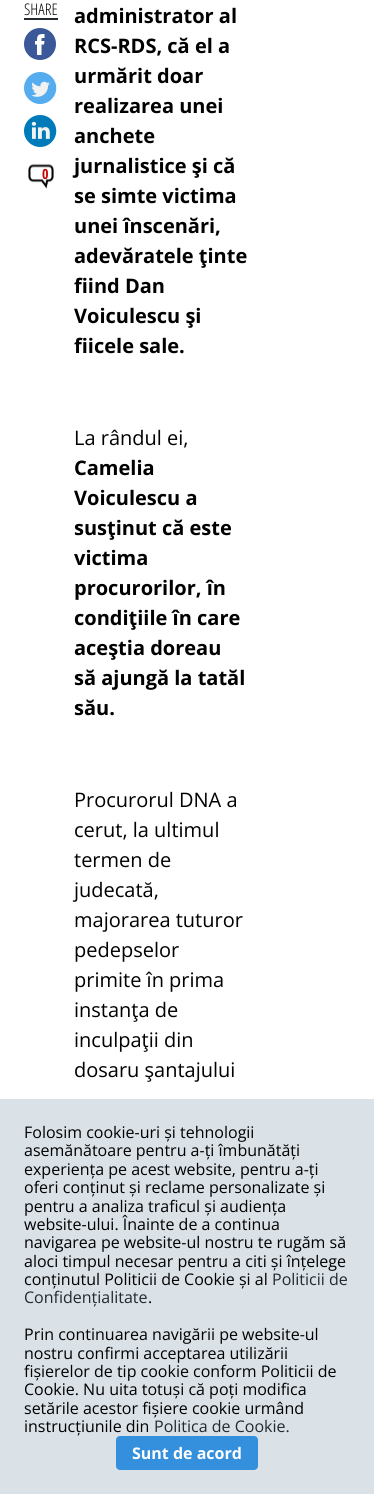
import math
import cairo


def use_color(cr, r, g, b):
  cr.set_source_rgb(r / 255, g / 255, b / 255)

def text(cr, x, y, s, family, size, color, bold=False, italic=False):
  cr.select_font_face(family, cairo.FONT_SLANT_ITALIC if italic else cairo.FONT_SLANT_NORMAL, cairo.FONT_WEIGHT_BOLD if bold else cairo.FONT_WEIGHT_NORMAL)
  cr.set_font_size(size)
  use_color(cr, *color)
  cr.move_to(x, y)
  cr.show_text(s)

def box(cr, x, y, w, h, *color):
  use_color(cr, *color)
  cr.rectangle(x, y, w, h)
  cr.fill()

def round_rect(cr, x, y, w, h, r):
  cr.new_sub_path()
  for i, (u, v) in enumerate([(x + w - r, y + h - r), (x + r, y + h - r), (x + r, y + r), (x + w - r, y + r)]):
    cr.arc(u, v, r, i * math.pi / 2, (i + 1) * math.pi / 2)
  cr.close_path()

def picture(cr, path, x, y, w, h):
  cr.save()
  cr.set_source_surface(cairo.ImageSurface.create_from_png(path), x, y)
  cr.rectangle(x, y, w, h)
  cr.fill()
  cr.restore()

def draw(cr):
  use_color(cr, 255, 255, 255)
  cr.paint()
  box(cr, 24, 18, 34, 2, 34, 41, 47)
  use_color(cr, 59, 89, 152)
  cr.new_path()
  cr.move_to(40, 60)
  cr.curve_to(49, 60, 56, 53, 56, 44)
  cr.curve_to(56, 35, 49, 28, 40, 28)
  cr.curve_to(31, 28, 24, 35, 24, 44)
  cr.curve_to(24, 53, 31, 60, 40, 60)
  cr.close_path()
  cr.fill()
  use_color(cr, 255, 255, 255)
  cr.new_path()
  cr.move_to(44, 44.5)
  cr.line_to(41.5, 44.5)
  cr.line_to(41.5, 55)
  cr.line_to(37, 55)
  cr.line_to(37, 44.5)
  cr.line_to(35, 44.5)
  cr.line_to(35, 41)
  cr.line_to(37, 41)
  cr.curve_to(37, 34.5, 38.5, 34, 44.5, 34)
  cr.line_to(44.5, 38)
  cr.curve_to(41, 38, 41.5, 37.5, 41.5, 41)
  cr.line_to(44.5, 41)
  cr.close_path()
  cr.fill()
  picture(cr, "img_01.png", 24, 72, 33, 32)
  picture(cr, "img_02.png", 24, 115, 33, 32)
  picture(cr, "img_03.png", 28, 163, 26, 26)
  box(cr, 0, 1099, 374, 395, 218, 225, 231)
  use_color(cr, 52, 144, 220)
  round_rect(cr, 116, 1436, 142, 34, 4)
  cr.fill()
  text(cr, 24, 15, "SHARE", "Open Sans Condensed Light", 16, (0, 0, 0))
  text(cr, 42, 179, "0", "Open Sans Condensed", 14, (200, 0, 0), bold=True)
  text(cr, 74, 23, "administrator al", "Open Sans", 20, (0, 0, 0), bold=True)
  text(cr, 74, 53, "RCS-RDS, că el a", "Open Sans", 20, (0, 0, 0), bold=True)
  text(cr, 74, 83, "urmărit doar", "Open Sans", 20, (0, 0, 0), bold=True)
  text(cr, 74, 113, "realizarea unei", "Open Sans", 20, (0, 0, 0), bold=True)
  text(cr, 74, 143, "anchete", "Open Sans", 20, (0, 0, 0), bold=True)
  text(cr, 74, 173, "jurnalistice şi că", "Open Sans", 20, (0, 0, 0), bold=True)
  text(cr, 74, 203, "se simte victima", "Open Sans", 20, (0, 0, 0), bold=True)
  text(cr, 74, 233, "unei înscenări,", "Open Sans", 20, (0, 0, 0), bold=True)
  text(cr, 74, 263, "adevăratele ţinte", "Open Sans", 20, (0, 0, 0), bold=True)
  text(cr, 74, 293, "fiind Dan", "Open Sans", 20, (0, 0, 0), bold=True)
  text(cr, 74, 323, "Voiculescu şi", "Open Sans", 20, (0, 0, 0), bold=True)
  text(cr, 74, 353, "fiicele sale.", "Open Sans", 20, (0, 0, 0), bold=True)
  text(cr, 74, 445, "La rândul ei,", "Open Sans", 20, (0, 0, 0))
  text(cr, 74, 475, "Camelia", "Open Sans", 20, (0, 0, 0), bold=True)
  text(cr, 74, 505, "Voiculescu a", "Open Sans", 20, (0, 0, 0), bold=True)
  text(cr, 74, 535, "susţinut că este", "Open Sans", 20, (0, 0, 0), bold=True)
  text(cr, 74, 565, "victima", "Open Sans", 20, (0, 0, 0), bold=True)
  text(cr, 74, 595, "procurorilor, în", "Open Sans", 20, (0, 0, 0), bold=True)
  text(cr, 74, 625, "condiţiile în care", "Open Sans", 20, (0, 0, 0), bold=True)
  text(cr, 74, 655, "aceştia doreau", "Open Sans", 20, (0, 0, 0), bold=True)
  text(cr, 74, 685, "să ajungă la tatăl", "Open Sans", 20, (0, 0, 0), bold=True)
  text(cr, 74, 715, "său.", "Open Sans", 20, (0, 0, 0), bold=True)
  text(cr, 74, 807, "Procurorul DNA a", "Open Sans", 20, (0, 0, 0))
  text(cr, 74, 837, "cerut, la ultimul", "Open Sans", 20, (0, 0, 0))
  text(cr, 74, 867, "termen de", "Open Sans", 20, (0, 0, 0))
  text(cr, 74, 897, "judecată,", "Open Sans", 20, (0, 0, 0))
  text(cr, 74, 927, "majorarea tuturor", "Open Sans", 20, (0, 0, 0))
  text(cr, 74, 957, "pedepselor", "Open Sans", 20, (0, 0, 0))
  text(cr, 74, 987, "primite în prima", "Open Sans", 20, (0, 0, 0))
  text(cr, 74, 1017, "instanţa de", "Open Sans", 20, (0, 0, 0))
  text(cr, 74, 1047, "inculpaţii din", "Open Sans", 20, (0, 0, 0))
  text(cr, 74, 1077, "dosaru şantajului", "Open Sans", 20, (0, 0, 0))
  text(cr, 24, 1138, "Folosim cookie-uri și tehnologii", "Open Sans", 16, (0, 0, 0))
  text(cr, 24, 1156, "asemănătoare pentru a-ți îmbunătăți", "Open Sans", 16, (0, 0, 0))
  text(cr, 24, 1175, "experiența pe acest website, pentru a-ți", "Open Sans", 16, (0, 0, 0))
  text(cr, 24, 1193, "oferi conținut și reclame personalizate și", "Open Sans", 16, (0, 0, 0))
  text(cr, 24, 1212, "pentru a analiza traficul și audiența", "Open Sans", 16, (0, 0, 0))
  text(cr, 24, 1230, "website-ului. Înainte de a continua", "Open Sans", 16, (0, 0, 0))
  text(cr, 24, 1248, "navigarea pe website-ul nostru te rugăm să", "Open Sans", 16, (0, 0, 0))
  text(cr, 24, 1267, "aloci timpul necesar pentru a citi și înțelege", "Open Sans", 16, (0, 0, 0))
  text(cr, 24, 1285, "conținutul Politicii de Cookie și al", "Open Sans", 16, (0, 0, 0))
  text(cr, 272, 1285, "Politicii de", "Open Sans", 16, (34, 41, 47))
  text(cr, 24, 1303, "Confidențialitate", "Open Sans", 16, (34, 41, 47))
  text(cr, 148, 1303, ".", "Open Sans", 16, (0, 0, 0))
  text(cr, 24, 1340, "Prin continuarea navigării pe website-ul", "Open Sans", 16, (0, 0, 0))
  text(cr, 24, 1359, "nostru confirmi acceptarea utilizării", "Open Sans", 16, (0, 0, 0))
  text(cr, 24, 1377, "fișierelor de tip cookie conform Politicii de", "Open Sans", 16, (0, 0, 0))
  text(cr, 24, 1395, "Cookie. Nu uita totuși că poți modifica", "Open Sans", 16, (0, 0, 0))
  text(cr, 24, 1414, "setările acestor fișiere cookie urmând", "Open Sans", 16, (0, 0, 0))
  text(cr, 24, 1432, "instrucțiunile din", "Open Sans", 16, (0, 0, 0))
  text(cr, 154, 1432, "Politica de Cookie.", "Open Sans", 16, (34, 41, 47))
  text(cr, 132, 1459, "Sunt de acord", "Open Sans", 16, (255, 255, 255), bold=True)


surface = cairo.ImageSurface(cairo.FORMAT_RGB24, 374, 1494)
cr = cairo.Context(surface)
options = cairo.FontOptions()
options.set_hint_metrics(cairo.HINT_METRICS_OFF)
options.set_hint_style(cairo.HINT_STYLE_NONE)
cr.set_font_options(options)
cr.set_miter_limit(4)
draw(cr)
surface.write_to_png("out.png")
